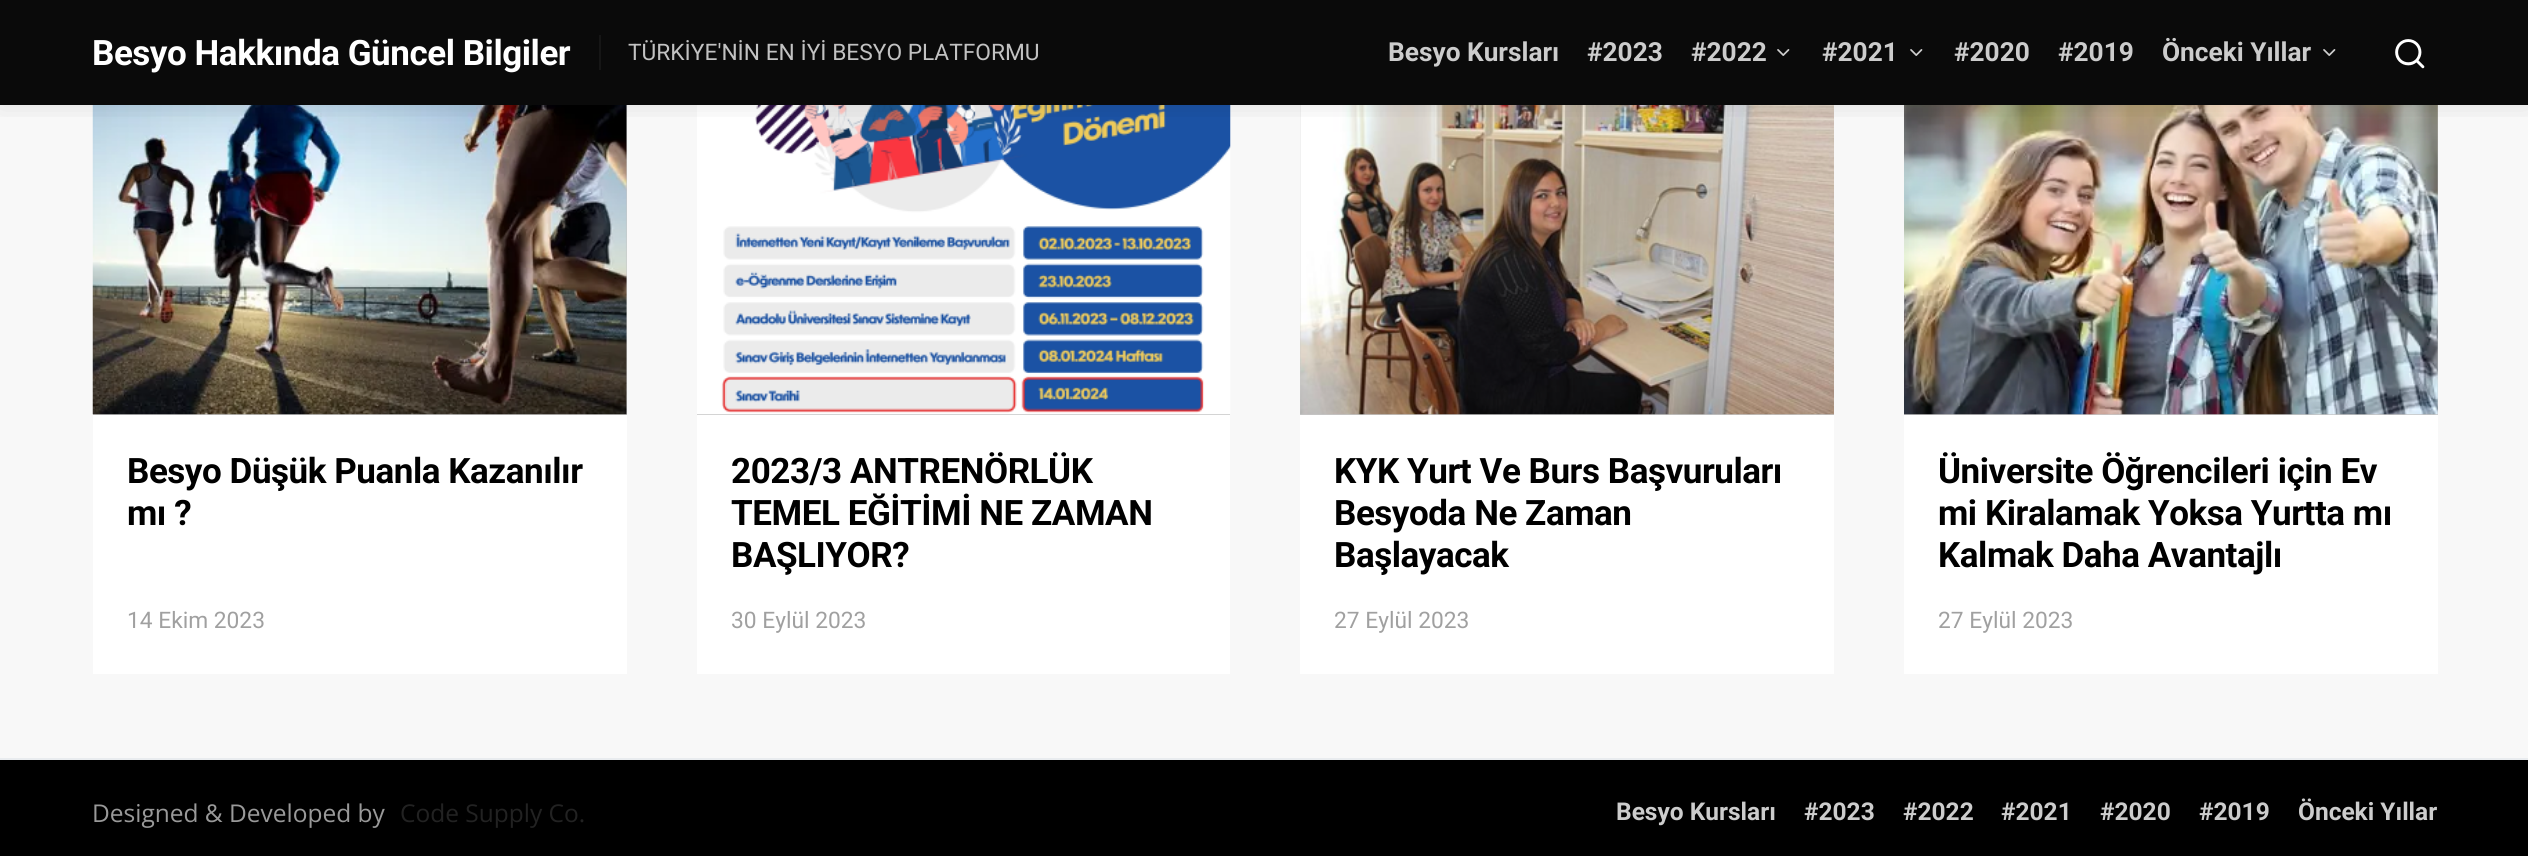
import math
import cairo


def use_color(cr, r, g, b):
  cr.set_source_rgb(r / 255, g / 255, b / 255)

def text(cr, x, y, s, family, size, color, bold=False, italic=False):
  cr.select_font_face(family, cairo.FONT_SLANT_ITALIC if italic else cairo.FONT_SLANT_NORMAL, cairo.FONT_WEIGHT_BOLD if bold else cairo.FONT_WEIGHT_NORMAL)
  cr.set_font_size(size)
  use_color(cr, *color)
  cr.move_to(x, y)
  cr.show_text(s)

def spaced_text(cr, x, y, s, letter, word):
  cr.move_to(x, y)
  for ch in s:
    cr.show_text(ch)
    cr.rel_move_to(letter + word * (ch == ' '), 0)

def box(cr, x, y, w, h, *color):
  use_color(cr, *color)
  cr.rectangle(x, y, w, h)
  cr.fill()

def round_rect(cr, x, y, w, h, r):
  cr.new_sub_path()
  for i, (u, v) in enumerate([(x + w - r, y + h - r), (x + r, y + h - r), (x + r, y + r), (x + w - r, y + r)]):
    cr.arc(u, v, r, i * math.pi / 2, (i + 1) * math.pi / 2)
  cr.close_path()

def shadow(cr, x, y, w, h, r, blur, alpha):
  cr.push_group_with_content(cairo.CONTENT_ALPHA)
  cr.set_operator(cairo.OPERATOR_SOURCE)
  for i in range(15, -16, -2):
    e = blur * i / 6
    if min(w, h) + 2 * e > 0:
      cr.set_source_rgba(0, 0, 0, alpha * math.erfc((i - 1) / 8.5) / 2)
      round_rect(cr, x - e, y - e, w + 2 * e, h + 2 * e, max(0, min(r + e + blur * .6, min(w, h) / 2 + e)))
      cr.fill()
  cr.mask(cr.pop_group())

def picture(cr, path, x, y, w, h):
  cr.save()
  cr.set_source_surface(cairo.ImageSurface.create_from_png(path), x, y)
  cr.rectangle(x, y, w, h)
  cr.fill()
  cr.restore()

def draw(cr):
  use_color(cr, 248, 248, 248)
  cr.paint()
  box(cr, 0, 0, 2528, 105, 10, 10, 10)
  box(cr, 93, 105, 534, 310, 198, 198, 198)
  picture(cr, "img_03.png", 92, 105, 535, 310)
  box(cr, 697, 414, 533, 1, 198, 198, 198)
  picture(cr, "img_04.png", 697, 105, 534, 310)
  box(cr, 1300, 105, 534, 310, 198, 198, 198)
  picture(cr, "img_05.png", 1300, 105, 534, 310)
  box(cr, 1904, 105, 534, 310, 198, 198, 198)
  picture(cr, "img_06.png", 1904, 105, 534, 310)
  cr.save()
  cr.rectangle(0, 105, 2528, 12)
  cr.clip()
  use_color(cr, 0, 0, 0)
  shadow(cr, 0, 0, 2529, 105, 0, 14, 0.1)
  cr.restore()
  box(cr, 599, 35, 2, 35, 22, 22, 22)
  picture(cr, "img_01.png", 1777, 49, 13, 7)
  picture(cr, "img_01.png", 1910, 49, 13, 7)
  picture(cr, "img_01.png", 2323, 49, 13, 7)
  picture(cr, "img_02.png", 2395, 39, 30, 30)
  box(cr, 93, 415, 534, 259, 255, 255, 255)
  box(cr, 697, 415, 533, 259, 255, 255, 255)
  box(cr, 1300, 415, 534, 259, 255, 255, 255)
  box(cr, 1904, 415, 534, 259, 255, 255, 255)
  box(cr, 0, 760, 2528, 96, 0, 0, 0)
  box(cr, 0, 758, 2528, 2, 233, 236, 239)
  cr.select_font_face("Roboto", cairo.FONT_SLANT_NORMAL, cairo.FONT_WEIGHT_BOLD)
  cr.set_font_size(35)
  use_color(cr, 255, 255, 255)
  spaced_text(cr, 92, 65, "Besyo Hakkında Güncel Bilgiler", -0.45, 0)
  text(cr, 628, 60, "TÜRKİYE'NİN EN İYİ BESYO PLATFORMU", "Roboto", 22.75, (194, 194, 194))
  text(cr, 1388, 61, "Besyo Kursları", "Roboto", 26.25, (204, 204, 204), bold=True)
  text(cr, 1587, 61, "#2023", "Roboto", 26.25, (204, 204, 204), bold=True)
  text(cr, 1691, 61, "#2022", "Roboto", 26.25, (204, 204, 204), bold=True)
  text(cr, 1822, 61, "#2021", "Roboto", 26.25, (204, 204, 204), bold=True)
  text(cr, 1954, 61, "#2020", "Roboto", 26.25, (204, 204, 204), bold=True)
  text(cr, 2058, 61, "#2019", "Roboto", 26.25, (204, 204, 204), bold=True)
  text(cr, 2162, 61, "Önceki Yıllar", "Roboto", 26.25, (204, 204, 204), bold=True)
  cr.set_font_size(35)
  use_color(cr, 0, 0, 0)
  spaced_text(cr, 127, 483, "Besyo Düşük Puanla Kazanılır", -0.45, 0)
  spaced_text(cr, 127, 525, "mı ?", -0.45, 0)
  text(cr, 127, 628, "14 Ekim 2023", "Roboto", 22.75, (160, 160, 160))
  cr.select_font_face("Roboto", cairo.FONT_SLANT_NORMAL, cairo.FONT_WEIGHT_BOLD)
  cr.set_font_size(35)
  use_color(cr, 0, 0, 0)
  spaced_text(cr, 731, 483, "2023/3 ANTRENÖRLÜK", -0.45, 0)
  spaced_text(cr, 731, 525, "TEMEL EĞİTİMİ NE ZAMAN", -0.45, 0)
  spaced_text(cr, 731, 567, "BAŞLIYOR?", -0.45, 0)
  text(cr, 731, 628, "30 Eylül 2023", "Roboto", 22.75, (160, 160, 160))
  cr.select_font_face("Roboto", cairo.FONT_SLANT_NORMAL, cairo.FONT_WEIGHT_BOLD)
  cr.set_font_size(35)
  use_color(cr, 0, 0, 0)
  spaced_text(cr, 1334, 483, "KYK Yurt Ve Burs Başvuruları", -0.45, 0)
  spaced_text(cr, 1334, 525, "Besyoda Ne Zaman", -0.45, 0)
  spaced_text(cr, 1334, 567, "Başlayacak", -0.45, 0)
  text(cr, 1334, 628, "27 Eylül 2023", "Roboto", 22.75, (160, 160, 160))
  cr.select_font_face("Roboto", cairo.FONT_SLANT_NORMAL, cairo.FONT_WEIGHT_BOLD)
  cr.set_font_size(35)
  use_color(cr, 0, 0, 0)
  spaced_text(cr, 1938, 483, "Üniversite Öğrencileri için Ev", -0.45, 0)
  spaced_text(cr, 1938, 525, "mi Kiralamak Yoksa Yurtta mı", -0.45, 0)
  spaced_text(cr, 1938, 567, "Kalmak Daha Avantajlı", -0.45, 0)
  text(cr, 1938, 628, "27 Eylül 2023", "Roboto", 22.75, (160, 160, 160))
  text(cr, 92, 822, "Designed & Developed by", "Open Sans", 24.5, (153, 153, 153))
  text(cr, 400, 822, "Code Supply Co.", "Open Sans", 24.5, (34, 34, 34))
  text(cr, 1616, 820, "Besyo Kursları", "Roboto", 24.5, (204, 204, 204), bold=True)
  text(cr, 1804, 820, "#2023", "Roboto", 24.5, (204, 204, 204), bold=True)
  text(cr, 1903, 820, "#2022", "Roboto", 24.5, (204, 204, 204), bold=True)
  text(cr, 2001, 820, "#2021", "Roboto", 24.5, (204, 204, 204), bold=True)
  text(cr, 2100, 820, "#2020", "Roboto", 24.5, (204, 204, 204), bold=True)
  text(cr, 2199, 820, "#2019", "Roboto", 24.5, (204, 204, 204), bold=True)
  text(cr, 2298, 820, "Önceki Yıllar", "Roboto", 24.5, (204, 204, 204), bold=True)


surface = cairo.ImageSurface(cairo.FORMAT_RGB24, 2528, 856)
cr = cairo.Context(surface)
options = cairo.FontOptions()
options.set_hint_metrics(cairo.HINT_METRICS_OFF)
options.set_hint_style(cairo.HINT_STYLE_NONE)
cr.set_font_options(options)
cr.set_miter_limit(4)
draw(cr)
surface.write_to_png("out.png")
